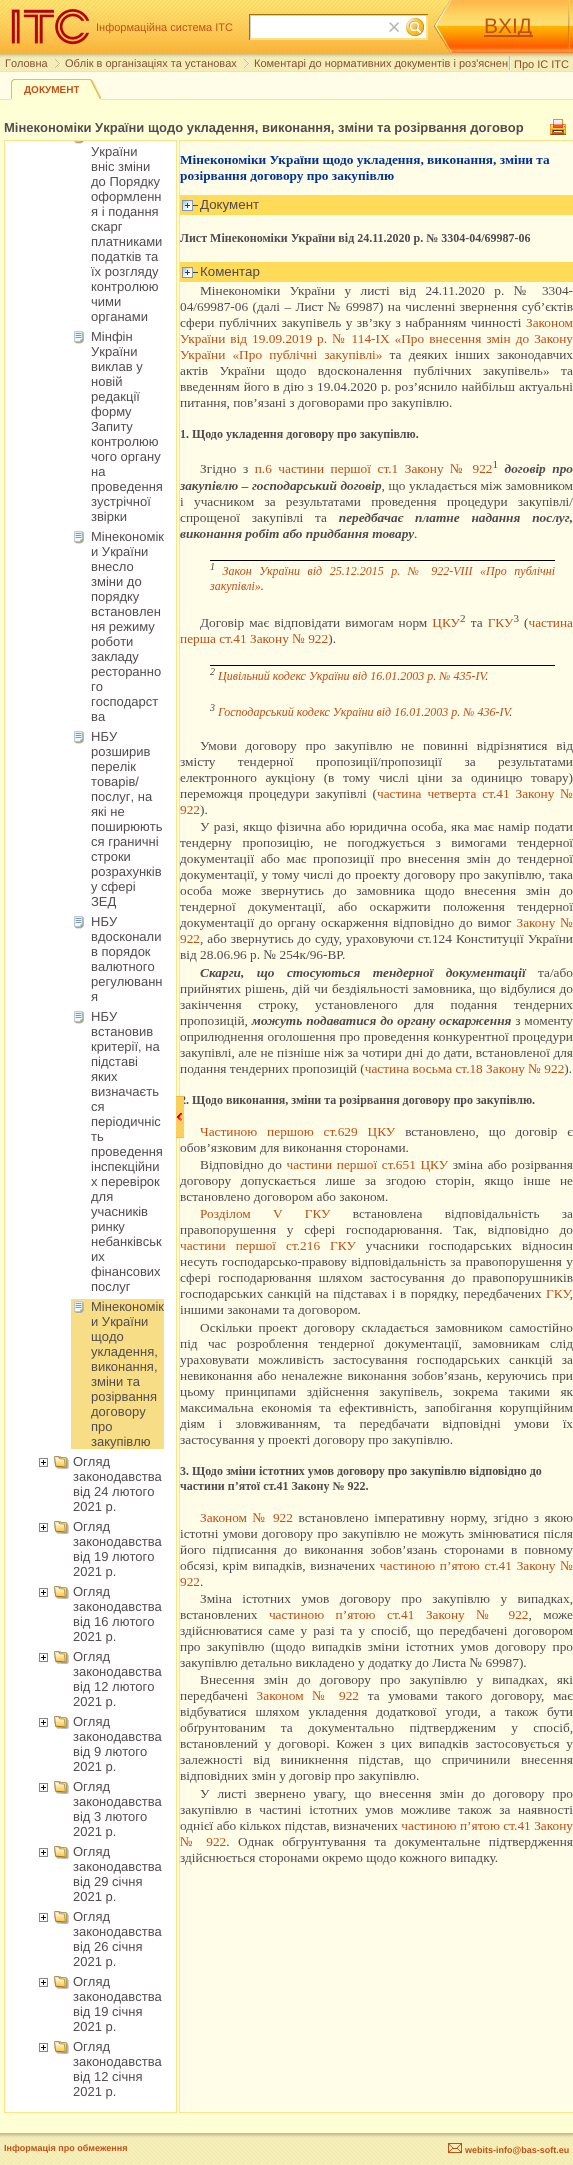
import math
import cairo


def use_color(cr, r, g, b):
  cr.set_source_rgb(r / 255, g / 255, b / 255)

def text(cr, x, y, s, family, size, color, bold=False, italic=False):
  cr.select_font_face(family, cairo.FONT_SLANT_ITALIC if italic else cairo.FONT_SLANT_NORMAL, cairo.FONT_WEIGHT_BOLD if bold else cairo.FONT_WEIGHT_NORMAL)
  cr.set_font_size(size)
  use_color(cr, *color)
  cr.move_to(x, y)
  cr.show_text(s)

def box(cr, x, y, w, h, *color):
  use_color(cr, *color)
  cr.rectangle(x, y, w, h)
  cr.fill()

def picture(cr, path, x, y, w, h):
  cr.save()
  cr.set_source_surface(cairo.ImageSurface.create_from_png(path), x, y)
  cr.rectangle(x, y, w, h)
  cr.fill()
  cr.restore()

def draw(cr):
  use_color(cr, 255, 253, 232)
  cr.paint()
  picture(cr, "img_01.png", 0, 0, 428, 53)
  picture(cr, "img_02.png", 10, 9, 79, 36)
  box(cr, 250, 14, 178, 1, 158, 119, 0)
  box(cr, 249, 39, 179, 1, 255, 224, 131)
  box(cr, 249, 14, 1, 26, 158, 119, 0)
  box(cr, 251, 16, 175, 22, 255, 255, 255)
  box(cr, 250, 15, 178, 1, 208, 207, 203)
  box(cr, 250, 38, 178, 1, 255, 224, 131)
  box(cr, 250, 15, 1, 24, 208, 207, 203)
  box(cr, 426, 16, 2, 22, 255, 224, 131)
  picture(cr, "img_03.png", 389, 22, 10, 10)
  picture(cr, "img_04.png", 405, 17, 19, 20)
  picture(cr, "img_05.png", 428, 0, 24, 53)
  picture(cr, "img_06.png", 452, 0, 113, 53)
  box(cr, 484, 35, 49, 2, 193, 80, 22)
  picture(cr, "img_07.png", 565, 0, 8, 53)
  picture(cr, "img_08.png", 568, 0, 2, 53)
  picture(cr, "img_09.png", 0, 53, 573, 18)
  box(cr, 0, 71, 573, 1, 255, 226, 137)
  picture(cr, "img_10.png", 54, 54, 8, 17)
  picture(cr, "img_10.png", 243, 54, 8, 17)
  picture(cr, "img_11.png", 508, 54, 19, 17)
  picture(cr, "img_12.png", 509, 56, 2, 14)
  box(cr, 0, 99, 573, 1, 255, 226, 137)
  picture(cr, "img_13.png", 90, 79, 11, 20)
  box(cr, 11, 99, 90, 1, 255, 255, 213)
  box(cr, 11, 79, 79, 20, 255, 255, 213)
  picture(cr, "img_14.png", 11, 79, 3, 20)
  box(cr, 14, 79, 76, 1, 238, 189, 72)
  box(cr, 0, 100, 573, 2033, 255, 255, 213)
  picture(cr, "img_15.png", 550, 119, 16, 16)
  use_color(cr, 255, 255, 255)
  cr.rectangle(4.5, 140.5, 172, 1972)
  cr.fill_preserve()
  use_color(cr, 255, 226, 137)
  cr.set_line_width(1)
  cr.stroke()
  picture(cr, "img_16.png", 74, 141, 10, 3)
  picture(cr, "img_17.png", 74, 331, 10, 13)
  picture(cr, "img_17.png", 74, 531, 10, 13)
  picture(cr, "img_17.png", 74, 731, 10, 13)
  picture(cr, "img_17.png", 74, 916, 10, 13)
  picture(cr, "img_17.png", 74, 1011, 10, 13)
  box(cr, 71, 1299, 93, 150, 247, 221, 133)
  picture(cr, "img_18.png", 74, 1301, 10, 13)
  picture(cr, "img_19.png", 39, 1458, 9, 9)
  picture(cr, "img_20.png", 54, 1456, 15, 13)
  picture(cr, "img_19.png", 39, 1523, 9, 9)
  picture(cr, "img_20.png", 54, 1521, 15, 13)
  picture(cr, "img_19.png", 39, 1588, 9, 9)
  picture(cr, "img_20.png", 54, 1586, 15, 13)
  picture(cr, "img_19.png", 39, 1653, 9, 9)
  picture(cr, "img_20.png", 54, 1651, 15, 13)
  picture(cr, "img_19.png", 39, 1718, 9, 9)
  picture(cr, "img_20.png", 54, 1716, 15, 13)
  picture(cr, "img_19.png", 39, 1783, 9, 9)
  picture(cr, "img_20.png", 54, 1781, 15, 13)
  picture(cr, "img_19.png", 39, 1848, 9, 9)
  picture(cr, "img_20.png", 54, 1846, 15, 13)
  picture(cr, "img_19.png", 39, 1913, 9, 9)
  picture(cr, "img_20.png", 54, 1911, 15, 13)
  picture(cr, "img_19.png", 39, 1978, 9, 9)
  picture(cr, "img_20.png", 54, 1976, 15, 13)
  picture(cr, "img_19.png", 39, 2043, 9, 9)
  picture(cr, "img_20.png", 54, 2041, 15, 13)
  cr.rectangle(179.5, 140.5, 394, 1972)
  use_color(cr, 255, 226, 137)
  cr.stroke()
  box(cr, 180, 2111, 393, 1, 255, 255, 255)
  picture(cr, "img_21.png", 180, 141, 393, 1970)
  picture(cr, "img_22.png", 176, 1097, 8, 40)
  box(cr, 176, 1096, 8, 1, 238, 189, 72)
  box(cr, 176, 1137, 8, 1, 238, 189, 72)
  picture(cr, "img_23.png", 177, 1113, 5, 8)
  picture(cr, "img_24.png", 0, 2133, 573, 32)
  picture(cr, "img_25.png", 448, 2143, 14, 10)
  text(cr, 96, 31, "Інформаційна система ІТС", "Liberation Sans", 11, (193, 80, 22))
  text(cr, 484, 33, "ВХІД", "Liberation Sans", 21, (193, 80, 22))
  text(cr, 5, 67, "Головна", "Liberation Sans", 11, (131, 79, 56))
  text(cr, 65, 67, "Облік в організаціях та установах", "Liberation Sans", 11, (131, 79, 56))
  text(cr, 254, 67, "Коментарі до нормативних документів і роз'яснен", "Liberation Sans", 11, (131, 79, 56))
  text(cr, 514, 68, "Про ІС ІТС", "Liberation Sans", 11, (131, 79, 56))
  text(cr, 24, 93, "ДОКУМЕНТ", "Liberation Sans", 10, (193, 80, 22), bold=True)
  text(cr, 4, 132, "Мінекономіки України щодо укладення, виконання, зміни та розірвання договор", "Liberation Sans", 13, (81, 75, 79), bold=True)
  text(cr, 91, 156, "України", "Liberation Sans", 13, (81, 75, 79))
  text(cr, 91, 171, "вніс зміни", "Liberation Sans", 13, (81, 75, 79))
  text(cr, 91, 186, "до Порядку", "Liberation Sans", 13, (81, 75, 79))
  text(cr, 91, 201, "оформленн", "Liberation Sans", 13, (81, 75, 79))
  text(cr, 91, 216, "я і подання", "Liberation Sans", 13, (81, 75, 79))
  text(cr, 91, 231, "скарг", "Liberation Sans", 13, (81, 75, 79))
  text(cr, 91, 246, "платниками", "Liberation Sans", 13, (81, 75, 79))
  text(cr, 91, 261, "податків та", "Liberation Sans", 13, (81, 75, 79))
  text(cr, 91, 276, "їх розгляду", "Liberation Sans", 13, (81, 75, 79))
  text(cr, 91, 291, "контролюю", "Liberation Sans", 13, (81, 75, 79))
  text(cr, 91, 306, "чими", "Liberation Sans", 13, (81, 75, 79))
  text(cr, 91, 321, "органами", "Liberation Sans", 13, (81, 75, 79))
  text(cr, 91, 341, "Мінфін", "Liberation Sans", 13, (81, 75, 79))
  text(cr, 91, 356, "України", "Liberation Sans", 13, (81, 75, 79))
  text(cr, 91, 371, "виклав у", "Liberation Sans", 13, (81, 75, 79))
  text(cr, 91, 386, "новій", "Liberation Sans", 13, (81, 75, 79))
  text(cr, 91, 401, "редакції", "Liberation Sans", 13, (81, 75, 79))
  text(cr, 91, 416, "форму", "Liberation Sans", 13, (81, 75, 79))
  text(cr, 91, 431, "Запиту", "Liberation Sans", 13, (81, 75, 79))
  text(cr, 91, 446, "контролюю", "Liberation Sans", 13, (81, 75, 79))
  text(cr, 91, 461, "чого органу", "Liberation Sans", 13, (81, 75, 79))
  text(cr, 91, 476, "на", "Liberation Sans", 13, (81, 75, 79))
  text(cr, 91, 491, "проведення", "Liberation Sans", 13, (81, 75, 79))
  text(cr, 91, 506, "зустрічної", "Liberation Sans", 13, (81, 75, 79))
  text(cr, 91, 521, "звірки", "Liberation Sans", 13, (81, 75, 79))
  text(cr, 91, 541, "Мінекономік", "Liberation Sans", 13, (81, 75, 79))
  text(cr, 91, 556, "и України", "Liberation Sans", 13, (81, 75, 79))
  text(cr, 91, 571, "внесло", "Liberation Sans", 13, (81, 75, 79))
  text(cr, 91, 586, "зміни до", "Liberation Sans", 13, (81, 75, 79))
  text(cr, 91, 601, "порядку", "Liberation Sans", 13, (81, 75, 79))
  text(cr, 91, 616, "встановлен", "Liberation Sans", 13, (81, 75, 79))
  text(cr, 91, 631, "ня режиму", "Liberation Sans", 13, (81, 75, 79))
  text(cr, 91, 646, "роботи", "Liberation Sans", 13, (81, 75, 79))
  text(cr, 91, 661, "закладу", "Liberation Sans", 13, (81, 75, 79))
  text(cr, 91, 676, "ресторанно", "Liberation Sans", 13, (81, 75, 79))
  text(cr, 91, 691, "го", "Liberation Sans", 13, (81, 75, 79))
  text(cr, 91, 706, "господарст", "Liberation Sans", 13, (81, 75, 79))
  text(cr, 91, 721, "ва", "Liberation Sans", 13, (81, 75, 79))
  text(cr, 91, 741, "НБУ", "Liberation Sans", 13, (81, 75, 79))
  text(cr, 91, 756, "розширив", "Liberation Sans", 13, (81, 75, 79))
  text(cr, 91, 771, "перелік", "Liberation Sans", 13, (81, 75, 79))
  text(cr, 91, 786, "товарів/", "Liberation Sans", 13, (81, 75, 79))
  text(cr, 91, 801, "послуг, на", "Liberation Sans", 13, (81, 75, 79))
  text(cr, 91, 816, "які не", "Liberation Sans", 13, (81, 75, 79))
  text(cr, 91, 831, "поширюють", "Liberation Sans", 13, (81, 75, 79))
  text(cr, 91, 846, "ся граничні", "Liberation Sans", 13, (81, 75, 79))
  text(cr, 91, 861, "строки", "Liberation Sans", 13, (81, 75, 79))
  text(cr, 91, 876, "розрахунків", "Liberation Sans", 13, (81, 75, 79))
  text(cr, 91, 891, "у сфері", "Liberation Sans", 13, (81, 75, 79))
  text(cr, 91, 906, "ЗЕД", "Liberation Sans", 13, (81, 75, 79))
  text(cr, 91, 926, "НБУ", "Liberation Sans", 13, (81, 75, 79))
  text(cr, 91, 941, "вдосконали", "Liberation Sans", 13, (81, 75, 79))
  text(cr, 91, 956, "в порядок", "Liberation Sans", 13, (81, 75, 79))
  text(cr, 91, 971, "валютного", "Liberation Sans", 13, (81, 75, 79))
  text(cr, 91, 986, "регулюванн", "Liberation Sans", 13, (81, 75, 79))
  text(cr, 91, 1001, "я", "Liberation Sans", 13, (81, 75, 79))
  text(cr, 91, 1021, "НБУ", "Liberation Sans", 13, (81, 75, 79))
  text(cr, 91, 1036, "встановив", "Liberation Sans", 13, (81, 75, 79))
  text(cr, 91, 1051, "критерії, на", "Liberation Sans", 13, (81, 75, 79))
  text(cr, 91, 1066, "підставі", "Liberation Sans", 13, (81, 75, 79))
  text(cr, 91, 1081, "яких", "Liberation Sans", 13, (81, 75, 79))
  text(cr, 91, 1096, "визначаєть", "Liberation Sans", 13, (81, 75, 79))
  text(cr, 91, 1111, "ся", "Liberation Sans", 13, (81, 75, 79))
  text(cr, 91, 1126, "періодичніс", "Liberation Sans", 13, (81, 75, 79))
  text(cr, 91, 1141, "ть", "Liberation Sans", 13, (81, 75, 79))
  text(cr, 91, 1156, "проведення", "Liberation Sans", 13, (81, 75, 79))
  text(cr, 91, 1171, "інспекційни", "Liberation Sans", 13, (81, 75, 79))
  text(cr, 91, 1186, "х перевірок", "Liberation Sans", 13, (81, 75, 79))
  text(cr, 91, 1201, "для", "Liberation Sans", 13, (81, 75, 79))
  text(cr, 91, 1216, "учасників", "Liberation Sans", 13, (81, 75, 79))
  text(cr, 91, 1231, "ринку", "Liberation Sans", 13, (81, 75, 79))
  text(cr, 91, 1246, "небанківськ", "Liberation Sans", 13, (81, 75, 79))
  text(cr, 91, 1261, "их", "Liberation Sans", 13, (81, 75, 79))
  text(cr, 91, 1276, "фінансових", "Liberation Sans", 13, (81, 75, 79))
  text(cr, 91, 1291, "послуг", "Liberation Sans", 13, (81, 75, 79))
  text(cr, 91, 1311, "Мінекономік", "Liberation Sans", 13, (81, 75, 79))
  text(cr, 91, 1326, "и України", "Liberation Sans", 13, (81, 75, 79))
  text(cr, 91, 1341, "щодо", "Liberation Sans", 13, (81, 75, 79))
  text(cr, 91, 1356, "укладення,", "Liberation Sans", 13, (81, 75, 79))
  text(cr, 91, 1371, "виконання,", "Liberation Sans", 13, (81, 75, 79))
  text(cr, 91, 1386, "зміни та", "Liberation Sans", 13, (81, 75, 79))
  text(cr, 91, 1401, "розірвання", "Liberation Sans", 13, (81, 75, 79))
  text(cr, 91, 1416, "договору", "Liberation Sans", 13, (81, 75, 79))
  text(cr, 91, 1431, "про", "Liberation Sans", 13, (81, 75, 79))
  text(cr, 91, 1446, "закупівлю", "Liberation Sans", 13, (81, 75, 79))
  text(cr, 73, 1466, "Огляд", "Liberation Sans", 13, (81, 75, 79))
  text(cr, 73, 1481, "законодавства", "Liberation Sans", 13, (81, 75, 79))
  text(cr, 73, 1496, "від 24 лютого", "Liberation Sans", 13, (81, 75, 79))
  text(cr, 73, 1511, "2021 р.", "Liberation Sans", 13, (81, 75, 79))
  text(cr, 73, 1531, "Огляд", "Liberation Sans", 13, (81, 75, 79))
  text(cr, 73, 1546, "законодавства", "Liberation Sans", 13, (81, 75, 79))
  text(cr, 73, 1561, "від 19 лютого", "Liberation Sans", 13, (81, 75, 79))
  text(cr, 73, 1576, "2021 р.", "Liberation Sans", 13, (81, 75, 79))
  text(cr, 73, 1596, "Огляд", "Liberation Sans", 13, (81, 75, 79))
  text(cr, 73, 1611, "законодавства", "Liberation Sans", 13, (81, 75, 79))
  text(cr, 73, 1626, "від 16 лютого", "Liberation Sans", 13, (81, 75, 79))
  text(cr, 73, 1641, "2021 р.", "Liberation Sans", 13, (81, 75, 79))
  text(cr, 73, 1661, "Огляд", "Liberation Sans", 13, (81, 75, 79))
  text(cr, 73, 1676, "законодавства", "Liberation Sans", 13, (81, 75, 79))
  text(cr, 73, 1691, "від 12 лютого", "Liberation Sans", 13, (81, 75, 79))
  text(cr, 73, 1706, "2021 р.", "Liberation Sans", 13, (81, 75, 79))
  text(cr, 73, 1726, "Огляд", "Liberation Sans", 13, (81, 75, 79))
  text(cr, 73, 1741, "законодавства", "Liberation Sans", 13, (81, 75, 79))
  text(cr, 73, 1756, "від 9 лютого", "Liberation Sans", 13, (81, 75, 79))
  text(cr, 73, 1771, "2021 р.", "Liberation Sans", 13, (81, 75, 79))
  text(cr, 73, 1791, "Огляд", "Liberation Sans", 13, (81, 75, 79))
  text(cr, 73, 1806, "законодавства", "Liberation Sans", 13, (81, 75, 79))
  text(cr, 73, 1821, "від 3 лютого", "Liberation Sans", 13, (81, 75, 79))
  text(cr, 73, 1836, "2021 р.", "Liberation Sans", 13, (81, 75, 79))
  text(cr, 73, 1856, "Огляд", "Liberation Sans", 13, (81, 75, 79))
  text(cr, 73, 1871, "законодавства", "Liberation Sans", 13, (81, 75, 79))
  text(cr, 73, 1886, "від 29 січня", "Liberation Sans", 13, (81, 75, 79))
  text(cr, 73, 1901, "2021 р.", "Liberation Sans", 13, (81, 75, 79))
  text(cr, 73, 1921, "Огляд", "Liberation Sans", 13, (81, 75, 79))
  text(cr, 73, 1936, "законодавства", "Liberation Sans", 13, (81, 75, 79))
  text(cr, 73, 1951, "від 26 січня", "Liberation Sans", 13, (81, 75, 79))
  text(cr, 73, 1966, "2021 р.", "Liberation Sans", 13, (81, 75, 79))
  text(cr, 73, 1986, "Огляд", "Liberation Sans", 13, (81, 75, 79))
  text(cr, 73, 2001, "законодавства", "Liberation Sans", 13, (81, 75, 79))
  text(cr, 73, 2016, "від 19 січня", "Liberation Sans", 13, (81, 75, 79))
  text(cr, 73, 2031, "2021 р.", "Liberation Sans", 13, (81, 75, 79))
  text(cr, 73, 2051, "Огляд", "Liberation Sans", 13, (81, 75, 79))
  text(cr, 73, 2066, "законодавства", "Liberation Sans", 13, (81, 75, 79))
  text(cr, 73, 2081, "від 12 січня", "Liberation Sans", 13, (81, 75, 79))
  text(cr, 73, 2096, "2021 р.", "Liberation Sans", 13, (81, 75, 79))
  text(cr, 4, 2151, "Інформація про обмеження", "Liberation Sans", 9, (193, 80, 22), bold=True)
  text(cr, 465, 2153, "webits-info@bas-soft.eu", "Liberation Sans", 9, (193, 80, 22), bold=True)


surface = cairo.ImageSurface(cairo.FORMAT_RGB24, 573, 2165)
cr = cairo.Context(surface)
options = cairo.FontOptions()
options.set_hint_metrics(cairo.HINT_METRICS_OFF)
options.set_hint_style(cairo.HINT_STYLE_NONE)
cr.set_font_options(options)
cr.set_miter_limit(4)
draw(cr)
surface.write_to_png("out.png")
